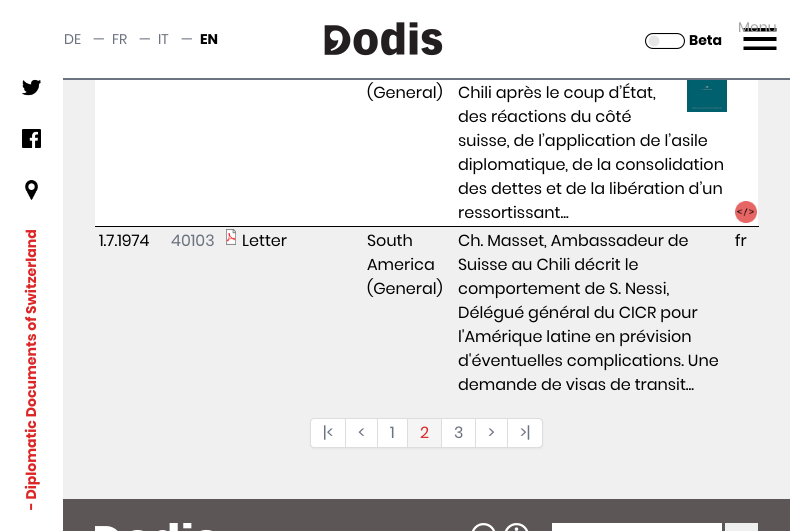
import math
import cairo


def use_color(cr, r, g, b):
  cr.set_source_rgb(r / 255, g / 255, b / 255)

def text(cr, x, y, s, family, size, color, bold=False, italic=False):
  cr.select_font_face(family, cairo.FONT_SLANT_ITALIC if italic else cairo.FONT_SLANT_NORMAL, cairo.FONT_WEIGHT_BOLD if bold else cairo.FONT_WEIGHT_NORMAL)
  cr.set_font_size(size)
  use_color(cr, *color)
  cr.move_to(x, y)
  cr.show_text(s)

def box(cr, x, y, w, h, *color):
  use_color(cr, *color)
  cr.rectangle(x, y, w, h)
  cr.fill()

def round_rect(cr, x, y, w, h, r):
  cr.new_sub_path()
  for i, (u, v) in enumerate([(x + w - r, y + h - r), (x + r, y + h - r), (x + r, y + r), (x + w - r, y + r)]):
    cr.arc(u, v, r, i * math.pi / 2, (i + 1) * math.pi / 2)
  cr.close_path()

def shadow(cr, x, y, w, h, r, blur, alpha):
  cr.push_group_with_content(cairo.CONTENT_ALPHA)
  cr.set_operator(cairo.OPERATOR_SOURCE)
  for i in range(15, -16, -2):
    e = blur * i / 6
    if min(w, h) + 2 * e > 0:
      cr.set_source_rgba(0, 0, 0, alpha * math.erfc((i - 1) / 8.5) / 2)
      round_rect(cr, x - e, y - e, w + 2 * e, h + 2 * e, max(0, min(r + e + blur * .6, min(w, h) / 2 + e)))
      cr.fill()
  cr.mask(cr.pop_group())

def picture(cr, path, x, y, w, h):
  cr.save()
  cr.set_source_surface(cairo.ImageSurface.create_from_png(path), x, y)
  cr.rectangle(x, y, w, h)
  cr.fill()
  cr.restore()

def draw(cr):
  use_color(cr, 240, 240, 240)
  cr.paint()
  box(cr, 63, 0, 727, 78, 255, 255, 255)
  box(cr, 63, 78, 727, 2, 107, 114, 128)
  picture(cr, "img_01.png", 324, 22, 119, 34)
  use_color(cr, 0, 0, 0)
  cr.new_path()
  cr.move_to(776.5, 50)
  cr.line_to(743.5, 50)
  cr.line_to(743.5, 46.5)
  cr.line_to(776.5, 46.5)
  cr.close_path()
  cr.move_to(776.5, 41)
  cr.line_to(743.5, 41)
  cr.line_to(743.5, 37)
  cr.line_to(776.5, 37)
  cr.close_path()
  cr.move_to(776.5, 31.5)
  cr.line_to(743.5, 31.5)
  cr.line_to(743.5, 28)
  cr.line_to(776.5, 28)
  cr.close_path()
  cr.fill()
  picture(cr, "img_02.png", 645, 33, 40, 16)
  box(cr, 0, 0, 63, 531, 255, 255, 255)
  picture(cr, "img_03.png", 22, 79, 19, 17)
  picture(cr, "img_04.png", 22, 129, 19, 19)
  picture(cr, "img_05.png", 25, 180, 13, 20)
  box(cr, 95, 80, 663, 146, 255, 255, 255)
  picture(cr, "img_06.png", 687, 80, 40, 32)
  picture(cr, "img_07.png", 735, 201, 22, 22)
  box(cr, 95, 226, 664, 1, 0, 0, 0)
  picture(cr, "img_08.png", 226, 229, 10, 16)
  use_color(cr, 0, 0, 0)
  shadow(cr, 310, 419, 233, 30, 4, 1, 0.05)
  use_color(cr, 255, 255, 255)
  cr.new_path()
  cr.move_to(314, 418.5)
  cr.line_to(345.5, 418.5)
  cr.line_to(345.5, 447.5)
  cr.line_to(314, 447.5)
  cr.curve_to(312, 447.5, 310.5, 446, 310.5, 444)
  cr.line_to(310.5, 422)
  cr.curve_to(310.5, 420, 312, 418.5, 314, 418.5)
  cr.close_path()
  cr.fill_preserve()
  use_color(cr, 221, 221, 221)
  cr.set_line_width(1)
  cr.stroke()
  box(cr, 346, 419, 31, 28, 255, 255, 255)
  box(cr, 346, 418, 162, 1, 221, 221, 221)
  box(cr, 377, 418, 1, 30, 221, 221, 221)
  box(cr, 346, 447, 32, 1, 221, 221, 221)
  box(cr, 378, 419, 29, 28, 255, 255, 255)
  box(cr, 407, 418, 1, 30, 221, 221, 221)
  box(cr, 378, 447, 30, 1, 221, 221, 221)
  box(cr, 408, 419, 33, 28, 245, 245, 245)
  box(cr, 441, 418, 1, 30, 221, 221, 221)
  box(cr, 408, 447, 34, 1, 221, 221, 221)
  box(cr, 442, 419, 33, 28, 255, 255, 255)
  box(cr, 475, 418, 1, 30, 221, 221, 221)
  box(cr, 442, 447, 34, 1, 221, 221, 221)
  box(cr, 476, 419, 31, 28, 255, 255, 255)
  box(cr, 507, 418, 1, 30, 221, 221, 221)
  box(cr, 476, 447, 32, 1, 221, 221, 221)
  use_color(cr, 255, 255, 255)
  cr.new_path()
  cr.move_to(508, 419)
  cr.line_to(539, 419)
  cr.curve_to(540.5, 419, 542, 420.5, 542, 422)
  cr.line_to(542, 444)
  cr.curve_to(542, 445.5, 540.5, 447, 539, 447)
  cr.line_to(508, 447)
  cr.close_path()
  cr.fill()
  use_color(cr, 221, 221, 221)
  cr.set_fill_rule(cairo.FILL_RULE_EVEN_ODD)
  cr.new_path()
  cr.move_to(508, 418)
  cr.line_to(539, 418)
  cr.curve_to(541, 418, 543, 420, 543, 422)
  cr.line_to(543, 444)
  cr.curve_to(543, 446, 541, 448, 539, 448)
  cr.line_to(508, 448)
  cr.close_path()
  cr.move_to(508, 419)
  cr.line_to(539, 419)
  cr.curve_to(540.5, 419, 542, 420.5, 542, 422)
  cr.line_to(542, 444)
  cr.curve_to(542, 445.5, 540.5, 447, 539, 447)
  cr.line_to(508, 447)
  cr.close_path()
  cr.fill()
  box(cr, 63, 499, 727, 32, 93, 86, 86)
  picture(cr, "img_09.png", 95, 523, 117, 8)
  picture(cr, "img_10.png", 471, 523, 58, 8)
  box(cr, 552, 523, 170, 8, 255, 255, 255)
  box(cr, 725, 523, 33, 8, 239, 239, 239)
  text(cr, 64, 44, "DE", "Poppins", 14, (107, 114, 128))
  text(cr, 93, 44, "—", "Poppins", 14, (107, 114, 128))
  text(cr, 112, 44, "FR", "Poppins", 14, (107, 114, 128))
  text(cr, 139, 44, "—", "Poppins", 14, (107, 114, 128))
  text(cr, 158, 44, "IT", "Poppins", 14, (107, 114, 128))
  text(cr, 181, 44, "—", "Poppins", 14, (107, 114, 128))
  text(cr, 200, 44, "EN", "Poppins", 14, (0, 0, 0), bold=True)
  text(cr, 738, 32, "Menu", "Poppins", 14, (164, 164, 164))
  text(cr, 689, 45, "Beta", "Poppins", 14, (0, 0, 0), bold=True)
  cr.save()
  cr.translate(36, 510)
  cr.rotate(-90 * math.pi / 180)
  text(cr, 0, 0, "- Diplomatic Documents of Switzerland", "Poppins", 14, (220, 38, 38), bold=True)
  cr.restore()
  text(cr, 367, 98, "(General)", "Poppins", 16, (0, 0, 0))
  text(cr, 458, 98, "Chili après le coup d’État,", "Poppins", 16, (0, 0, 0))
  text(cr, 458, 122, "des réactions du côté", "Poppins", 16, (0, 0, 0))
  text(cr, 458, 146, "suisse, de l’application de l’asile", "Poppins", 16, (0, 0, 0))
  text(cr, 458, 170, "diplomatique, de la consolidation", "Poppins", 16, (0, 0, 0))
  text(cr, 458, 194, "des dettes et de la libération d’un", "Poppins", 16, (0, 0, 0))
  text(cr, 458, 218, "ressortissant...", "Poppins", 16, (0, 0, 0))
  text(cr, 99, 246, "1.7.1974", "Poppins", 16, (0, 0, 0))
  text(cr, 171, 246, "40103", "Poppins", 16, (107, 114, 128))
  text(cr, 242, 246, "Letter", "Poppins", 16, (0, 0, 0))
  text(cr, 367, 246, "South", "Poppins", 16, (0, 0, 0))
  text(cr, 367, 270, "America", "Poppins", 16, (0, 0, 0))
  text(cr, 367, 294, "(General)", "Poppins", 16, (0, 0, 0))
  text(cr, 458, 246, "Ch. Masset, Ambassadeur de", "Poppins", 16, (0, 0, 0))
  text(cr, 458, 270, "Suisse au Chili décrit le", "Poppins", 16, (0, 0, 0))
  text(cr, 458, 294, "comportement de S. Nessi,", "Poppins", 16, (0, 0, 0))
  text(cr, 458, 318, "Délégué général du CICR pour", "Poppins", 16, (0, 0, 0))
  text(cr, 458, 342, "l'Amérique latine en prévision", "Poppins", 16, (0, 0, 0))
  text(cr, 458, 366, "d'éventuelles complications. Une", "Poppins", 16, (0, 0, 0))
  text(cr, 458, 390, "demande de visas de transit...", "Poppins", 16, (0, 0, 0))
  text(cr, 735, 246, "fr", "Poppins", 16, (0, 0, 0))
  text(cr, 323, 438, "|<", "Poppins", 16, (107, 114, 128))
  text(cr, 358, 438, "<", "Poppins", 16, (107, 114, 128))
  text(cr, 390, 438, "1", "Poppins", 16, (107, 114, 128))
  text(cr, 420, 438, "2", "Poppins", 16, (220, 38, 38))
  text(cr, 454, 438, "3", "Poppins", 16, (107, 114, 128))
  text(cr, 488, 438, ">", "Poppins", 16, (107, 114, 128))
  text(cr, 520, 438, ">|", "Poppins", 16, (107, 114, 128))


surface = cairo.ImageSurface(cairo.FORMAT_RGB24, 790, 531)
cr = cairo.Context(surface)
options = cairo.FontOptions()
options.set_hint_metrics(cairo.HINT_METRICS_OFF)
options.set_hint_style(cairo.HINT_STYLE_NONE)
cr.set_font_options(options)
cr.set_miter_limit(4)
draw(cr)
surface.write_to_png("out.png")
